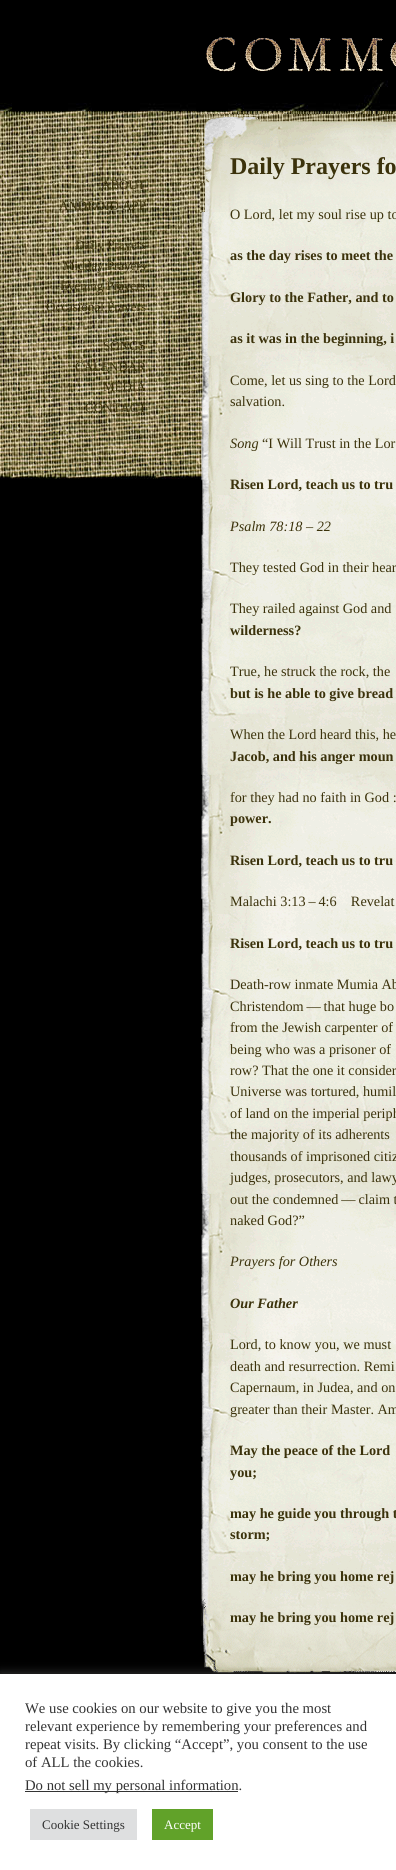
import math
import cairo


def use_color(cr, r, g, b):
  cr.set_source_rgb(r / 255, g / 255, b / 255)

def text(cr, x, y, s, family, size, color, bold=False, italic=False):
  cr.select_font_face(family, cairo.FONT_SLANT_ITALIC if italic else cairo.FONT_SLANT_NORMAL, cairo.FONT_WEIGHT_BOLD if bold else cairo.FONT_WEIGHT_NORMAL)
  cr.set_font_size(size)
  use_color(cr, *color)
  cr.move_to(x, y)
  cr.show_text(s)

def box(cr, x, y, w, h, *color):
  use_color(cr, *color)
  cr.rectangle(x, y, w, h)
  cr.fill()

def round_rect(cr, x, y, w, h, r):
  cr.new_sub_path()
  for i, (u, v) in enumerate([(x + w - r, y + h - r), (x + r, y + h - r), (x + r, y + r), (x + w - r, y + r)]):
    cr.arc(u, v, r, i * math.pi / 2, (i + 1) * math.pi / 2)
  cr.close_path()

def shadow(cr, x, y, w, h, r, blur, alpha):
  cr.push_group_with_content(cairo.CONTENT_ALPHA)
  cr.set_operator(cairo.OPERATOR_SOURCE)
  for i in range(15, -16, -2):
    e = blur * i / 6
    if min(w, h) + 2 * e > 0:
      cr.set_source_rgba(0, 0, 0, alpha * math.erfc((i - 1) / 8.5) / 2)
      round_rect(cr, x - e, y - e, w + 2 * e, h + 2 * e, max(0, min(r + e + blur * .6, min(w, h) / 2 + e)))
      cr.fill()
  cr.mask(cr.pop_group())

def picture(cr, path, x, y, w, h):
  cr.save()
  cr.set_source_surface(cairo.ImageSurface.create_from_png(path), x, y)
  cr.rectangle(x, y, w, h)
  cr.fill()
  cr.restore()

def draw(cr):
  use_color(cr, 0, 0, 0)
  cr.paint()
  picture(cr, "img_01.png", 0, 80, 396, 407)
  picture(cr, "img_02.png", 206, 37, 190, 35)
  picture(cr, "img_03.png", 201, 118, 195, 1554)
  picture(cr, "img_04.png", 200, 114, 196, 98)
  picture(cr, "img_05.png", 201, 1599, 195, 75)
  use_color(cr, 172, 171, 171)
  shadow(cr, 0, 1673, 396, 196, 0, 5, 0.3)
  box(cr, 0, 1674, 396, 196, 255, 255, 255)
  box(cr, 25, 1791, 213, 1, 51, 51, 51)
  box(cr, 30, 1809, 107, 31, 222, 223, 224)
  box(cr, 152, 1809, 61, 31, 97, 162, 41)
  text(cr, 101, 189, "ABOUT", "Liberation Serif", 13, (59, 50, 11))
  text(cr, 59, 210, "ANDROID APP", "Liberation Serif", 13, (59, 50, 11))
  text(cr, 75, 249, "Daily Prayers", "Liberation Serif", 13, (59, 50, 11))
  text(cr, 63, 270, "Midday Prayers", "Liberation Serif", 13, (59, 50, 11))
  text(cr, 60, 290, "Evening Prayers", "Liberation Serif", 13, (59, 50, 11))
  text(cr, 46, 311, "Occasional Prayers", "Liberation Serif", 13, (59, 50, 11))
  text(cr, 103, 350, "SONGS", "Liberation Serif", 13, (59, 50, 11))
  text(cr, 75, 371, "CALENDAR", "Liberation Serif", 13, (59, 50, 11))
  text(cr, 103, 391, "MEDIA", "Liberation Serif", 13, (59, 50, 11))
  text(cr, 85, 412, "CONTACT", "Liberation Serif", 13, (59, 50, 11))
  text(cr, 230, 174, "Daily Prayers fo", "Liberation Serif", 24, (59, 50, 11), bold=True)
  text(cr, 230, 219, "O Lord, let my soul rise up to", "Liberation Serif", 14.25, (59, 50, 11))
  text(cr, 230, 260, "as the day rises to meet the", "Liberation Serif", 14.25, (59, 50, 11), bold=True)
  text(cr, 230, 302, "Glory to the Father, and to", "Liberation Serif", 14.25, (59, 50, 11), bold=True)
  text(cr, 230, 343, "as it was in the beginning, i", "Liberation Serif", 14.25, (59, 50, 11), bold=True)
  text(cr, 230, 385, "Come, let us sing to the Lord", "Liberation Serif", 14.25, (59, 50, 11))
  text(cr, 230, 406, "salvation.", "Liberation Serif", 14.25, (59, 50, 11))
  text(cr, 230, 448, "Song", "Liberation Serif", 14.25, (59, 50, 11), italic=True)
  text(cr, 262, 448, "“I Will Trust in the Lor", "Liberation Serif", 14.25, (59, 50, 11))
  text(cr, 230, 489, "Risen Lord, teach us to tru", "Liberation Serif", 14.25, (59, 50, 11), bold=True)
  text(cr, 230, 531, "Psalm 78:18 – 22", "Liberation Serif", 14.25, (59, 50, 11), italic=True)
  text(cr, 230, 572, "They tested God in their hear", "Liberation Serif", 14.25, (59, 50, 11))
  text(cr, 230, 613, "They railed against God and", "Liberation Serif", 14.25, (59, 50, 11))
  text(cr, 230, 635, "wilderness?", "Liberation Serif", 14.25, (59, 50, 11), bold=True)
  text(cr, 230, 676, "True, he struck the rock, the", "Liberation Serif", 14.25, (59, 50, 11))
  text(cr, 230, 698, "but is he able to give bread", "Liberation Serif", 14.25, (59, 50, 11), bold=True)
  text(cr, 230, 739, "When the Lord heard this, he", "Liberation Serif", 14.25, (59, 50, 11))
  text(cr, 230, 761, "Jacob, and his anger moun", "Liberation Serif", 14.25, (59, 50, 11), bold=True)
  text(cr, 230, 802, "for they had no faith in God :", "Liberation Serif", 14.25, (59, 50, 11))
  text(cr, 230, 823, "power.", "Liberation Serif", 14.25, (59, 50, 11), bold=True)
  text(cr, 230, 865, "Risen Lord, teach us to tru", "Liberation Serif", 14.25, (59, 50, 11), bold=True)
  text(cr, 230, 906, "Malachi 3:13 – 4:6 Revelat", "Liberation Serif", 14.25, (59, 50, 11))
  text(cr, 230, 948, "Risen Lord, teach us to tru", "Liberation Serif", 14.25, (59, 50, 11), bold=True)
  text(cr, 230, 989, "Death-row inmate Mumia Ab", "Liberation Serif", 14.25, (59, 50, 11))
  text(cr, 230, 1011, "Christendom — that huge bo", "Liberation Serif", 14.25, (59, 50, 11))
  text(cr, 230, 1032, "from the Jewish carpenter of", "Liberation Serif", 14.25, (59, 50, 11))
  text(cr, 230, 1054, "being who was a prisoner of", "Liberation Serif", 14.25, (59, 50, 11))
  text(cr, 230, 1075, "row? That the one it consider", "Liberation Serif", 14.25, (59, 50, 11))
  text(cr, 230, 1096, "Universe was tortured, humil", "Liberation Serif", 14.25, (59, 50, 11))
  text(cr, 230, 1118, "of land on the imperial periph", "Liberation Serif", 14.25, (59, 50, 11))
  text(cr, 230, 1139, "the majority of its adherents", "Liberation Serif", 14.25, (59, 50, 11))
  text(cr, 230, 1161, "thousands of imprisoned citiz", "Liberation Serif", 14.25, (59, 50, 11))
  text(cr, 230, 1182, "judges, prosecutors, and lawy", "Liberation Serif", 14.25, (59, 50, 11))
  text(cr, 230, 1204, "out the condemned — claim t", "Liberation Serif", 14.25, (59, 50, 11))
  text(cr, 230, 1225, "naked God?”", "Liberation Serif", 14.25, (59, 50, 11))
  text(cr, 230, 1266, "Prayers for Others", "Liberation Serif", 14.25, (59, 50, 11), italic=True)
  text(cr, 230, 1308, "Our Father", "Liberation Serif", 14.25, (59, 50, 11), bold=True, italic=True)
  text(cr, 230, 1349, "Lord, to know you, we must", "Liberation Serif", 14.25, (59, 50, 11))
  text(cr, 230, 1371, "death and resurrection. Remi", "Liberation Serif", 14.25, (59, 50, 11))
  text(cr, 230, 1392, "Capernaum, in Judea, and on", "Liberation Serif", 14.25, (59, 50, 11))
  text(cr, 230, 1414, "greater than their Master. Am", "Liberation Serif", 14.25, (59, 50, 11))
  text(cr, 230, 1455, "May the peace of the Lord", "Liberation Serif", 14.25, (59, 50, 11), bold=True)
  text(cr, 230, 1477, "you;", "Liberation Serif", 14.25, (59, 50, 11), bold=True)
  text(cr, 230, 1518, "may he guide you through t", "Liberation Serif", 14.25, (59, 50, 11), bold=True)
  text(cr, 230, 1539, "storm;", "Liberation Serif", 14.25, (59, 50, 11), bold=True)
  text(cr, 230, 1581, "may he bring you home rej", "Liberation Serif", 14.25, (59, 50, 11), bold=True)
  text(cr, 230, 1622, "may he bring you home rej", "Liberation Serif", 14.25, (59, 50, 11), bold=True)
  text(cr, 25, 1713, "We use cookies on our website to give you the most", "Liberation Serif", 14.7, (51, 51, 51))
  text(cr, 25, 1731, "relevant experience by remembering your preferences and", "Liberation Serif", 14.7, (51, 51, 51))
  text(cr, 25, 1749, "repeat visits. By clicking “Accept”, you consent to the use", "Liberation Serif", 14.7, (51, 51, 51))
  text(cr, 25, 1767, "of ALL the cookies.", "Liberation Serif", 14.7, (51, 51, 51))
  text(cr, 25, 1790, "Do not sell my personal information.", "Liberation Serif", 14.7, (51, 51, 51))
  text(cr, 42, 1829, "Cookie Settings", "Liberation Serif", 13, (51, 51, 51))
  text(cr, 164, 1829, "Accept", "Liberation Serif", 13, (255, 255, 255))


surface = cairo.ImageSurface(cairo.FORMAT_RGB24, 396, 1870)
cr = cairo.Context(surface)
options = cairo.FontOptions()
options.set_hint_metrics(cairo.HINT_METRICS_OFF)
options.set_hint_style(cairo.HINT_STYLE_NONE)
cr.set_font_options(options)
cr.set_miter_limit(4)
draw(cr)
surface.write_to_png("out.png")
